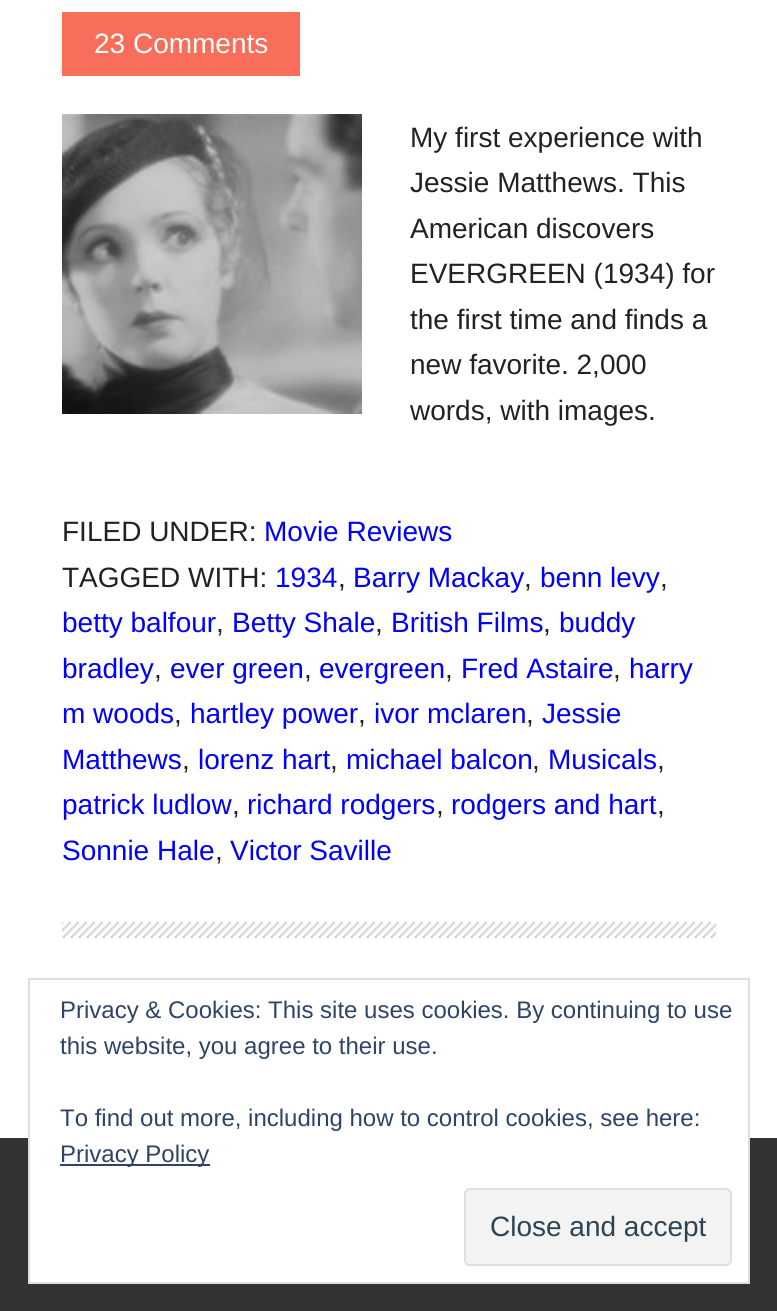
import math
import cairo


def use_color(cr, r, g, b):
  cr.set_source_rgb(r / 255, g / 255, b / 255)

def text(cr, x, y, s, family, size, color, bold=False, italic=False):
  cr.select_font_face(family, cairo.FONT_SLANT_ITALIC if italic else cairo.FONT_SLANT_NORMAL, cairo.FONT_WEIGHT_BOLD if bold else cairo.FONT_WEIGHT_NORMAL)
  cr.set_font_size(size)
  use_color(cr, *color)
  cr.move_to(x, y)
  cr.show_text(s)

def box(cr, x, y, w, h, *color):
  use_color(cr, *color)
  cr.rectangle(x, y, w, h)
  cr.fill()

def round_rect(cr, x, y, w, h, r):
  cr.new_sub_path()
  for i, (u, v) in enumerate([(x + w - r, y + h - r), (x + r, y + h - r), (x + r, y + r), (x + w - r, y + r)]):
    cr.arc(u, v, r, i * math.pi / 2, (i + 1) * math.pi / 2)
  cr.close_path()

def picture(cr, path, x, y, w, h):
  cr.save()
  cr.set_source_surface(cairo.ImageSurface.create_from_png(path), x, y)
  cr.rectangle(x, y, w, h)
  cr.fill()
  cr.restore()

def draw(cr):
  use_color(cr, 255, 255, 255)
  cr.paint()
  picture(cr, "img_01.png", 62, 922, 654, 16)
  box(cr, 62, 12, 238, 64, 249, 110, 91)
  picture(cr, "img_02.png", 62, 114, 300, 300)
  box(cr, 0, 1138, 777, 173, 51, 51, 51)
  box(cr, 30, 1138, 718, 144, 255, 255, 255)
  cr.rectangle(29, 979, 720, 304)
  use_color(cr, 222, 222, 222)
  cr.stroke()
  box(cr, 60, 1164, 150, 2, 46, 68, 103)
  use_color(cr, 243, 243, 243)
  round_rect(cr, 465, 1189, 266, 76, 5)
  cr.fill_preserve()
  use_color(cr, 222, 222, 222)
  cr.stroke()
  text(cr, 94, 53, "23 Comments", "Liberation Sans", 28, (255, 255, 255))
  text(cr, 410, 147, "My first experience with", "Liberation Sans", 28, (34, 34, 34))
  text(cr, 410, 192, "Jessie Matthews. This", "Liberation Sans", 28, (34, 34, 34))
  text(cr, 410, 238, "American discovers", "Liberation Sans", 28, (34, 34, 34))
  text(cr, 410, 283, "EVERGREEN (1934) for", "Liberation Sans", 28, (34, 34, 34))
  text(cr, 410, 329, "the first time and finds a", "Liberation Sans", 28, (34, 34, 34))
  text(cr, 410, 374, "new favorite. 2,000", "Liberation Sans", 28, (34, 34, 34))
  text(cr, 410, 420, "words, with images.", "Liberation Sans", 28, (34, 34, 34))
  text(cr, 62, 541, "FILED UNDER:", "Liberation Sans", 28, (34, 34, 34))
  text(cr, 264, 541, "Movie Reviews", "Liberation Sans", 28, (0, 0, 255))
  text(cr, 62, 587, "TAGGED WITH:", "Liberation Sans", 28, (34, 34, 34))
  text(cr, 275, 587, "1934", "Liberation Sans", 28, (0, 0, 255))
  text(cr, 338, 587, ",", "Liberation Sans", 28, (34, 34, 34))
  text(cr, 353, 587, "Barry Mackay", "Liberation Sans", 28, (0, 0, 255))
  text(cr, 524, 587, ",", "Liberation Sans", 28, (34, 34, 34))
  text(cr, 540, 587, "benn levy", "Liberation Sans", 28, (0, 0, 255))
  text(cr, 660, 587, ",", "Liberation Sans", 28, (34, 34, 34))
  text(cr, 62, 632, "betty balfour", "Liberation Sans", 28, (0, 0, 255))
  text(cr, 216, 632, ",", "Liberation Sans", 28, (34, 34, 34))
  text(cr, 232, 632, "Betty Shale", "Liberation Sans", 28, (0, 0, 255))
  text(cr, 375, 632, ",", "Liberation Sans", 28, (34, 34, 34))
  text(cr, 391, 632, "British Films", "Liberation Sans", 28, (0, 0, 255))
  text(cr, 543, 632, ",", "Liberation Sans", 28, (34, 34, 34))
  text(cr, 559, 632, "buddy", "Liberation Sans", 28, (0, 0, 255))
  text(cr, 62, 678, "bradley", "Liberation Sans", 28, (0, 0, 255))
  text(cr, 154, 678, ",", "Liberation Sans", 28, (34, 34, 34))
  text(cr, 170, 678, "ever green", "Liberation Sans", 28, (0, 0, 255))
  text(cr, 304, 678, ",", "Liberation Sans", 28, (34, 34, 34))
  text(cr, 319, 678, "evergreen", "Liberation Sans", 28, (0, 0, 255))
  text(cr, 445, 678, ",", "Liberation Sans", 28, (34, 34, 34))
  text(cr, 461, 678, "Fred Astaire", "Liberation Sans", 28, (0, 0, 255))
  text(cr, 613, 678, ",", "Liberation Sans", 28, (34, 34, 34))
  text(cr, 629, 678, "harry", "Liberation Sans", 28, (0, 0, 255))
  text(cr, 62, 723, "m woods", "Liberation Sans", 28, (0, 0, 255))
  text(cr, 174, 723, ",", "Liberation Sans", 28, (34, 34, 34))
  text(cr, 190, 723, "hartley power", "Liberation Sans", 28, (0, 0, 255))
  text(cr, 358, 723, ",", "Liberation Sans", 28, (34, 34, 34))
  text(cr, 374, 723, "ivor mclaren", "Liberation Sans", 28, (0, 0, 255))
  text(cr, 526, 723, ",", "Liberation Sans", 28, (34, 34, 34))
  text(cr, 542, 723, "Jessie", "Liberation Sans", 28, (0, 0, 255))
  text(cr, 62, 769, "Matthews", "Liberation Sans", 28, (0, 0, 255))
  text(cr, 182, 769, ",", "Liberation Sans", 28, (34, 34, 34))
  text(cr, 198, 769, "lorenz hart", "Liberation Sans", 28, (0, 0, 255))
  text(cr, 330, 769, ",", "Liberation Sans", 28, (34, 34, 34))
  text(cr, 346, 769, "michael balcon", "Liberation Sans", 28, (0, 0, 255))
  text(cr, 532, 769, ",", "Liberation Sans", 28, (34, 34, 34))
  text(cr, 548, 769, "Musicals", "Liberation Sans", 28, (0, 0, 255))
  text(cr, 657, 769, ",", "Liberation Sans", 28, (34, 34, 34))
  text(cr, 62, 814, "patrick ludlow", "Liberation Sans", 28, (0, 0, 255))
  text(cr, 232, 814, ",", "Liberation Sans", 28, (34, 34, 34))
  text(cr, 247, 814, "richard rodgers", "Liberation Sans", 28, (0, 0, 255))
  text(cr, 436, 814, ",", "Liberation Sans", 28, (34, 34, 34))
  text(cr, 451, 814, "rodgers and hart", "Liberation Sans", 28, (0, 0, 255))
  text(cr, 657, 814, ",", "Liberation Sans", 28, (34, 34, 34))
  text(cr, 62, 860, "Sonnie Hale", "Liberation Sans", 28, (0, 0, 255))
  text(cr, 215, 860, ",", "Liberation Sans", 28, (34, 34, 34))
  text(cr, 230, 860, "Victor Saville", "Liberation Sans", 28, (0, 0, 255))
  text(cr, 60, 1018, "Privacy & Cookies: This site uses cookies. By continuing to use", "Liberation Sans", 24, (46, 68, 103))
  text(cr, 60, 1054, "this website, you agree to their use.", "Liberation Sans", 24, (46, 68, 103))
  text(cr, 60, 1126, "To find out more, including how to control cookies, see here:", "Liberation Sans", 24, (46, 68, 103))
  text(cr, 60, 1162, "Privacy Policy", "Liberation Sans", 24, (46, 68, 103))
  text(cr, 490, 1236, "Close and accept", "Liberation Sans", 28, (46, 68, 83))


surface = cairo.ImageSurface(cairo.FORMAT_RGB24, 777, 1311)
cr = cairo.Context(surface)
options = cairo.FontOptions()
options.set_hint_metrics(cairo.HINT_METRICS_OFF)
options.set_hint_style(cairo.HINT_STYLE_NONE)
cr.set_font_options(options)
cr.set_miter_limit(4)
draw(cr)
surface.write_to_png("out.png")
